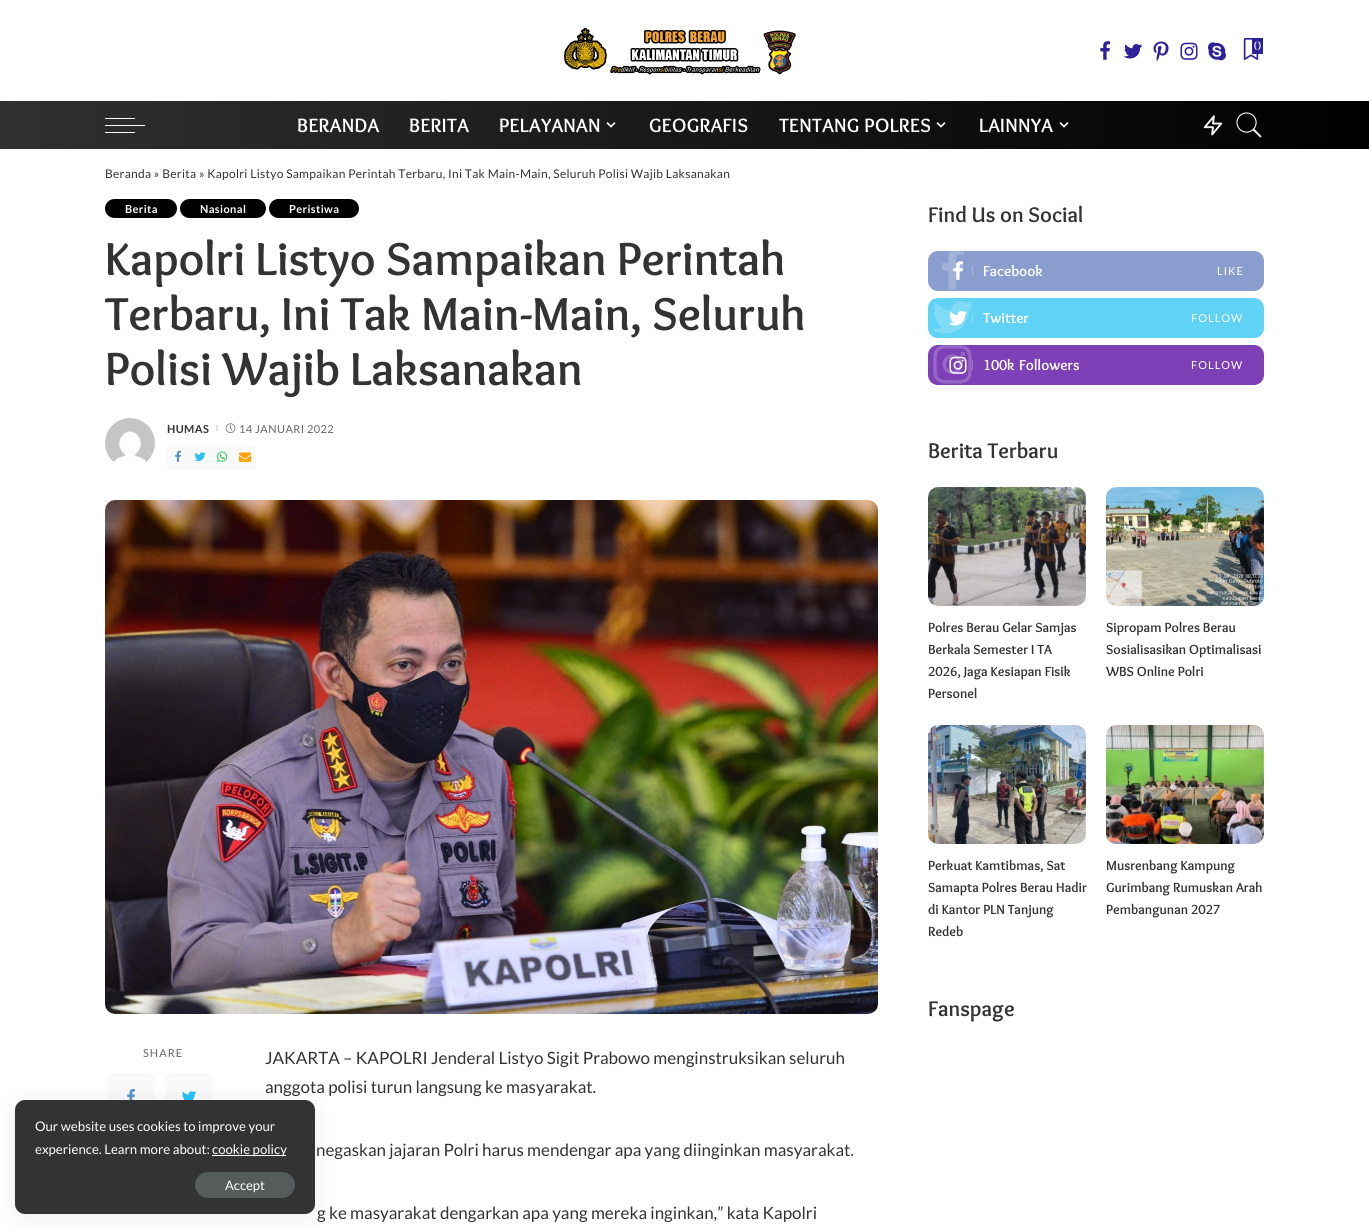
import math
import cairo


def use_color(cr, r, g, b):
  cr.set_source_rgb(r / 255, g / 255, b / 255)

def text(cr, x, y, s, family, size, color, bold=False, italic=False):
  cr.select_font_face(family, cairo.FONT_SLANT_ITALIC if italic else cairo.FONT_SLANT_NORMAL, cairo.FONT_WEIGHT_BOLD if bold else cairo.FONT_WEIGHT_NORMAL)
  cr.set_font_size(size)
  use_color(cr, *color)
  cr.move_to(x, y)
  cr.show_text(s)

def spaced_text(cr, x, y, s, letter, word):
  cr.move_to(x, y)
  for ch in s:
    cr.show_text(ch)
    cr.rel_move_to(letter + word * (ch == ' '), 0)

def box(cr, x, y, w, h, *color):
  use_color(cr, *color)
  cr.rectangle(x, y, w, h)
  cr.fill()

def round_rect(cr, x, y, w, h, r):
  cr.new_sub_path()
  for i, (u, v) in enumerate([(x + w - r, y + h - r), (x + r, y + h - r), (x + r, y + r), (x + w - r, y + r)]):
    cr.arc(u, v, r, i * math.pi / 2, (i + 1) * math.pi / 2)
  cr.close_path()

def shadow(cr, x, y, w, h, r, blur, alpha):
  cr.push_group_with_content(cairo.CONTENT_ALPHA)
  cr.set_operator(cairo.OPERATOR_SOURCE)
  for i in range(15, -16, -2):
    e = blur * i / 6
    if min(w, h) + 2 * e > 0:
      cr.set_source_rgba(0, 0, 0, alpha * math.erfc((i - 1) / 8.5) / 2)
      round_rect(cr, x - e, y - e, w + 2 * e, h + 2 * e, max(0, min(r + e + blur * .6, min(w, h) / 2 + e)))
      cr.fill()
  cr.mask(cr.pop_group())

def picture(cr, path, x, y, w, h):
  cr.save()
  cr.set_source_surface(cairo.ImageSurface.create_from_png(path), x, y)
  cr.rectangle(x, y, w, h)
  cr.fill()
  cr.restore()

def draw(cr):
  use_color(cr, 255, 255, 255)
  cr.paint()
  picture(cr, "img_01.png", 564, 27, 232, 48)
  picture(cr, "img_02.png", 1100, 41, 10, 19)
  picture(cr, "img_03.png", 1124, 44, 18, 15)
  picture(cr, "img_04.png", 1153, 41, 16, 20)
  picture(cr, "img_05.png", 1180, 42, 18, 18)
  picture(cr, "img_06.png", 1207, 42, 19, 19)
  box(cr, 1252, 38, 11, 16, 46, 34, 155)
  gradient = cairo.LinearGradient(0, 125, 1369, 125)
  gradient.add_color_stop_rgba(0, 0.188, 0.188, 0.188, 1)
  gradient.add_color_stop_rgba(1, 0, 0, 0, 1)
  cr.set_source(gradient)
  cr.rectangle(0, 101, 1369, 48)
  cr.fill()
  box(cr, 105, 125, 40, 1, 255, 255, 255)
  box(cr, 105, 118, 30, 1, 255, 255, 255)
  box(cr, 105, 132, 30, 1, 255, 255, 255)
  picture(cr, "img_08.png", 606, 122, 10, 6)
  picture(cr, "img_09.png", 936, 122, 10, 6)
  picture(cr, "img_10.png", 1059, 122, 10, 6)
  picture(cr, "img_11.png", 1203, 115, 20, 21)
  picture(cr, "img_12.png", 1236, 112, 26, 26)
  use_color(cr, 0, 0, 0)
  round_rect(cr, 105, 199, 72, 19, 9.5)
  cr.fill()
  round_rect(cr, 180, 199, 86, 19, 9.5)
  cr.fill()
  round_rect(cr, 269, 199, 90, 19, 9.5)
  cr.fill()
  picture(cr, "img_13.png", 105, 418, 50, 44)
  box(cr, 216, 425, 2, 6, 224, 224, 224)
  picture(cr, "img_14.png", 225, 423, 11, 10)
  use_color(cr, 249, 249, 249)
  round_rect(cr, 167, 445, 89, 25, 4)
  cr.fill()
  picture(cr, "img_15.png", 175, 450, 6, 12)
  picture(cr, "img_16.png", 194, 452, 12, 10)
  picture(cr, "img_17.png", 216, 451, 12, 11)
  picture(cr, "img_18.png", 239, 452, 12, 10)
  picture(cr, "img_19.png", 105, 500, 773, 514)
  round_rect(cr, 107, 1073, 48, 48, 6)
  cr.fill()
  picture(cr, "img_20.png", 127, 1089, 8, 11)
  round_rect(cr, 165, 1073, 48, 48, 6)
  cr.fill()
  picture(cr, "img_21.png", 182, 1091, 15, 9)
  use_color(cr, 137, 157, 206)
  round_rect(cr, 928, 251, 336, 40, 10)
  cr.fill()
  picture(cr, "img_22.png", 942, 251, 22, 39)
  picture(cr, "img_23.png", 953, 261, 10, 19)
  box(cr, 972, 266, 1, 10, 167, 182, 218)
  use_color(cr, 96, 210, 245)
  round_rect(cr, 928, 298, 336, 40, 10)
  cr.fill()
  box(cr, 972, 313, 1, 10, 136, 221, 248)
  picture(cr, "img_24.png", 932, 301, 41, 33)
  picture(cr, "img_25.png", 949, 311, 18, 15)
  use_color(cr, 126, 64, 182)
  round_rect(cr, 928, 345, 336, 40, 10)
  cr.fill()
  picture(cr, "img_26.png", 933, 345, 39, 39)
  picture(cr, "img_27.png", 949, 356, 18, 18)
  box(cr, 972, 360, 1, 10, 158, 112, 200)
  picture(cr, "img_28.png", 928, 487, 158, 119)
  picture(cr, "img_29.png", 1106, 487, 158, 119)
  picture(cr, "img_30.png", 928, 725, 158, 119)
  picture(cr, "img_31.png", 1106, 725, 158, 119)
  use_color(cr, 0, 0, 0)
  shadow(cr, 15, 1104, 300, 114, 10, 15, 0.07)
  use_color(cr, 51, 51, 51)
  round_rect(cr, 15, 1100, 300, 114, 10)
  cr.fill()
  box(cr, 212, 1155, 74, 1, 255, 255, 255)
  use_color(cr, 86, 92, 92)
  round_rect(cr, 195, 1172, 100, 26, 13)
  cr.fill()
  text(cr, 1254, 50, "0", "Lato", 12, (255, 255, 255))
  picture(cr, "img_07.png", 1243, 38, 16, 22)
  cr.select_font_face("Overlock", cairo.FONT_SLANT_NORMAL, cairo.FONT_WEIGHT_BOLD)
  cr.set_font_size(20)
  spaced_text(cr, 297, 132, "BERANDA", 0.4, 0)
  spaced_text(cr, 409, 132, "BERITA", 0.4, 0)
  spaced_text(cr, 499, 132, "PELAYANAN", 0.4, 0)
  spaced_text(cr, 649, 132, "GEOGRAFIS", 0.4, 0)
  spaced_text(cr, 779, 132, "TENTANG POLRES", 0.4, 0)
  spaced_text(cr, 979, 132, "LAINNYA", 0.4, 0)
  cr.select_font_face("Lato")
  cr.set_font_size(12)
  use_color(cr, 51, 51, 51)
  spaced_text(cr, 105, 178, "Beranda » Berita » Kapolri Listyo Sampaikan Perintah Terbaru, Ini Tak Main-Main, Seluruh Polisi Wajib Laksanakan", 0.26, 0)
  cr.select_font_face("Lato", cairo.FONT_SLANT_NORMAL, cairo.FONT_WEIGHT_BOLD)
  cr.set_font_size(11)
  use_color(cr, 255, 255, 255)
  spaced_text(cr, 125, 213, "Berita", 0.4, 0)
  spaced_text(cr, 200, 213, "Nasional", 0.4, 0)
  spaced_text(cr, 289, 213, "Peristiwa", 0.4, 0)
  text(cr, 105, 275, "Kapolri Listyo Sampaikan Perintah", "Overlock", 48, (51, 51, 51), bold=True)
  text(cr, 105, 330, "Terbaru, Ini Tak Main-Main, Seluruh", "Overlock", 48, (51, 51, 51), bold=True)
  text(cr, 105, 385, "Polisi Wajib Laksanakan", "Overlock", 48, (51, 51, 51), bold=True)
  cr.select_font_face("Lato", cairo.FONT_SLANT_NORMAL, cairo.FONT_WEIGHT_BOLD)
  cr.set_font_size(11)
  spaced_text(cr, 167, 433, "HUMAS", 0.4, 0)
  cr.select_font_face("Lato")
  use_color(cr, 102, 102, 102)
  spaced_text(cr, 239, 433, "14 JANUARI 2022", 0.4, 0)
  spaced_text(cr, 143, 1057, "SHARE", 1, 0)
  text(cr, 265, 1064, "JAKARTA – KAPOLRI Jenderal Listyo Sigit Prabowo menginstruksikan seluruh", "Lato", 17, (51, 51, 51))
  text(cr, 265, 1093, "anggota polisi turun langsung ke masyarakat.", "Lato", 17, (51, 51, 51))
  text(cr, 316, 1156, "negaskan jajaran Polri harus mendengar apa yang diinginkan masyarakat.", "Lato", 17, (51, 51, 51))
  text(cr, 317, 1219, "g ke masyarakat dengarkan apa yang mereka inginkan,” kata Kapolri", "Lato", 17, (51, 51, 51))
  text(cr, 928, 222, "Find Us on Social", "Overlock", 22, (51, 51, 51), bold=True)
  text(cr, 983, 276, "Facebook", "Overlock", 15, (255, 255, 255), bold=True)
  cr.select_font_face("Lato")
  cr.set_font_size(11)
  spaced_text(cr, 1217, 275, "LIKE", 1, 0)
  text(cr, 983, 323, "Twitter", "Overlock", 15, (255, 255, 255), bold=True)
  cr.select_font_face("Lato")
  cr.set_font_size(11)
  spaced_text(cr, 1191, 322, "FOLLOW", 1, 0)
  text(cr, 983, 370, "100k", "Overlock", 15, (255, 255, 255), bold=True)
  text(cr, 1019, 370, "Followers", "Overlock", 15, (255, 255, 255), bold=True)
  cr.select_font_face("Lato")
  cr.set_font_size(11)
  spaced_text(cr, 1191, 369, "FOLLOW", 1, 0)
  text(cr, 928, 458, "Berita Terbaru", "Overlock", 22, (51, 51, 51), bold=True)
  text(cr, 928, 632, "Polres Berau Gelar Samjas", "Overlock", 13.75, (51, 51, 51), bold=True)
  text(cr, 928, 654, "Berkala Semester I TA", "Overlock", 13.75, (51, 51, 51), bold=True)
  text(cr, 928, 676, "2026, Jaga Kesiapan Fisik", "Overlock", 13.75, (51, 51, 51), bold=True)
  text(cr, 928, 698, "Personel", "Overlock", 13.75, (51, 51, 51), bold=True)
  text(cr, 1106, 632, "Sipropam Polres Berau", "Overlock", 13.75, (51, 51, 51), bold=True)
  text(cr, 1106, 654, "Sosialisasikan Optimalisasi", "Overlock", 13.75, (51, 51, 51), bold=True)
  text(cr, 1106, 676, "WBS Online Polri", "Overlock", 13.75, (51, 51, 51), bold=True)
  text(cr, 928, 870, "Perkuat Kamtibmas, Sat", "Overlock", 13.75, (51, 51, 51), bold=True)
  text(cr, 928, 892, "Samapta Polres Berau Hadir", "Overlock", 13.75, (51, 51, 51), bold=True)
  text(cr, 928, 914, "di Kantor PLN Tanjung", "Overlock", 13.75, (51, 51, 51), bold=True)
  text(cr, 928, 936, "Redeb", "Overlock", 13.75, (51, 51, 51), bold=True)
  text(cr, 1106, 870, "Musrenbang Kampung", "Overlock", 13.75, (51, 51, 51), bold=True)
  text(cr, 1106, 892, "Gurimbang Rumuskan Arah", "Overlock", 13.75, (51, 51, 51), bold=True)
  text(cr, 1106, 914, "Pembangunan 2027", "Overlock", 13.75, (51, 51, 51), bold=True)
  text(cr, 928, 1016, "Fanspage", "Overlock", 22, (51, 51, 51), bold=True)
  text(cr, 35, 1131, "Our website uses cookies to improve your", "Lato", 13.2, (255, 255, 255))
  text(cr, 35, 1154, "experience. Learn more about:", "Lato", 13.2, (255, 255, 255))
  text(cr, 212, 1154, "cookie policy", "Lato", 13.2, (255, 255, 255))
  text(cr, 225, 1190, "Accept", "Lato", 13, (255, 255, 255))


surface = cairo.ImageSurface(cairo.FORMAT_RGB24, 1369, 1229)
cr = cairo.Context(surface)
options = cairo.FontOptions()
options.set_hint_metrics(cairo.HINT_METRICS_OFF)
options.set_hint_style(cairo.HINT_STYLE_NONE)
cr.set_font_options(options)
cr.set_miter_limit(4)
draw(cr)
surface.write_to_png("out.png")
